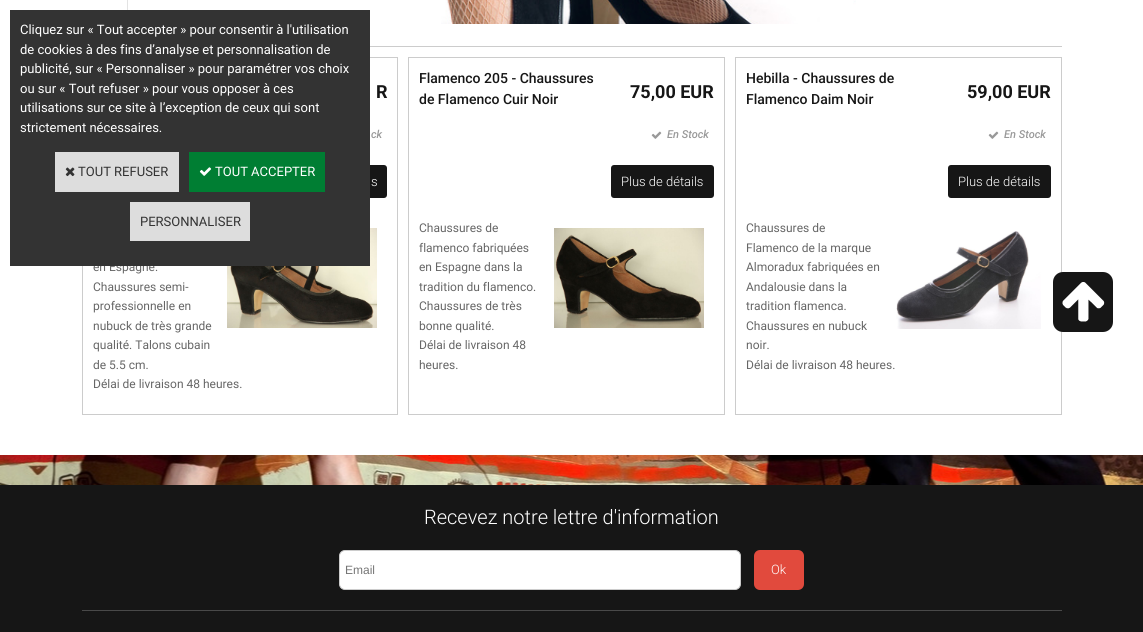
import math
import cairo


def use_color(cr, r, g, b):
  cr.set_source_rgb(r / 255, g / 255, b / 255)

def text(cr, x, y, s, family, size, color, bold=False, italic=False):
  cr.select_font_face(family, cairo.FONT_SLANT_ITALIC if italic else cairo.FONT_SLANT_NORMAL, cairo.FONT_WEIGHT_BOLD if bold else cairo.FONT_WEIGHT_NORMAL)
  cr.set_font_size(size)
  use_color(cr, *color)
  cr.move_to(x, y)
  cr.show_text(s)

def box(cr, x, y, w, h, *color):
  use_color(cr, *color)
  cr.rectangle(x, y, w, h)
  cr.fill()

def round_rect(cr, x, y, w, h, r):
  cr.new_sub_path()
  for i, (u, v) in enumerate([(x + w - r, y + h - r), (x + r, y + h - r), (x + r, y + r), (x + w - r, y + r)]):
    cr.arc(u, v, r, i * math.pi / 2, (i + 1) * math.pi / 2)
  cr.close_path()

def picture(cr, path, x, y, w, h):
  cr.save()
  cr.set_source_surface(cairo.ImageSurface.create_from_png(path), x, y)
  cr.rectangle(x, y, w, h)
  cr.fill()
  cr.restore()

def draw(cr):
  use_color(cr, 255, 255, 255)
  cr.paint()
  picture(cr, "img_01.png", 0, 455, 1143, 30)
  box(cr, 370, 46, 692, 1, 204, 204, 204)
  box(cr, 127, 0, 1, 10, 227, 227, 227)
  picture(cr, "img_04.png", 441, 0, 415, 24)
  cr.rectangle(82.5, 57.5, 315, 357)
  use_color(cr, 204, 204, 204)
  cr.set_line_width(1)
  cr.stroke()
  use_color(cr, 22, 22, 22)
  round_rect(cr, 285, 165, 102, 33, 3)
  cr.fill()
  picture(cr, "img_05.png", 227, 228, 150, 100)
  cr.rectangle(408.5, 57.5, 316, 357)
  use_color(cr, 204, 204, 204)
  cr.stroke()
  picture(cr, "img_06.png", 651, 131, 11, 8)
  use_color(cr, 22, 22, 22)
  round_rect(cr, 611, 165, 103, 33, 3)
  cr.fill()
  picture(cr, "img_07.png", 554, 228, 150, 100)
  cr.rectangle(735.5, 57.5, 326, 357)
  use_color(cr, 204, 204, 204)
  cr.stroke()
  picture(cr, "img_06.png", 988, 131, 11, 8)
  use_color(cr, 22, 22, 22)
  round_rect(cr, 948, 165, 103, 33, 3)
  cr.fill()
  picture(cr, "img_08.png", 896, 231, 145, 98)
  round_rect(cr, 1053, 272, 60, 60, 10)
  cr.fill()
  picture(cr, "img_09.png", 1062, 282, 43, 40)
  box(cr, 0, 485, 1143, 147, 22, 22, 22)
  box(cr, 82, 610, 980, 1, 73, 73, 73)
  use_color(cr, 255, 255, 255)
  round_rect(cr, 339.5, 550.5, 401, 39, 5.5)
  cr.fill_preserve()
  use_color(cr, 204, 204, 204)
  cr.stroke()
  use_color(cr, 225, 74, 61)
  round_rect(cr, 754, 550, 50, 40, 6)
  cr.fill()
  text(cr, 376, 98, "R", "Roboto", 18, (22, 22, 22), bold=True)
  text(cr, 371, 138, "ck", "Roboto Medium", 11, (153, 153, 153), italic=True)
  text(cr, 371, 186, "s", "Roboto Light", 13, (255, 255, 255))
  text(cr, 93, 271, "en Espagne.", "Roboto", 12, (102, 102, 102))
  box(cr, 10, 10, 360, 256, 51, 51, 51)
  box(cr, 130, 202, 120, 39, 221, 221, 221)
  text(cr, 140, 226, "PERSONNALISER", "Roboto", 13, (51, 51, 51))
  box(cr, 189, 152, 136, 40, 0, 126, 51)
  text(cr, 215, 176, "TOUT ACCEPTER", "Roboto", 13, (255, 255, 255))
  picture(cr, "img_03.png", 199, 167, 13, 9)
  box(cr, 55, 152, 124, 40, 221, 221, 221)
  text(cr, 78, 176, "TOUT REFUSER", "Roboto", 13, (51, 51, 51))
  picture(cr, "img_02.png", 65, 167, 10, 10)
  text(cr, 20, 132, "strictement nécessaires.", "Roboto", 13, (255, 255, 255))
  text(cr, 20, 112, "utilisations sur ce site à l’exception de ceux qui sont", "Roboto", 13, (255, 255, 255))
  text(cr, 20, 93, "ou sur « Tout refuser » pour vous opposer à ces", "Roboto", 13, (255, 255, 255))
  text(cr, 20, 73, "publicité, sur « Personnaliser » pour paramétrer vos choix", "Roboto", 13, (255, 255, 255))
  text(cr, 20, 54, "de cookies à des fins d’analyse et personnalisation de", "Roboto", 13, (255, 255, 255))
  text(cr, 20, 34, "Cliquez sur « Tout accepter » pour consentir à l'utilisation", "Roboto", 13, (255, 255, 255))
  text(cr, 93, 291, "Chaussures semi-", "Roboto", 12, (102, 102, 102))
  text(cr, 93, 310, "professionnelle en", "Roboto", 12, (102, 102, 102))
  text(cr, 93, 330, "nubuck de très grande", "Roboto", 12, (102, 102, 102))
  text(cr, 93, 349, "qualité. Talons cubain", "Roboto", 12, (102, 102, 102))
  text(cr, 93, 369, "de 5.5 cm.", "Roboto", 12, (102, 102, 102))
  text(cr, 93, 388, "Délai de livraison 48 heures.", "Roboto", 12, (102, 102, 102))
  text(cr, 419, 83, "Flamenco 205 - Chaussures", "Roboto Medium", 14, (22, 22, 22))
  text(cr, 419, 104, "de Flamenco Cuir Noir", "Roboto Medium", 14, (22, 22, 22))
  text(cr, 630, 98, "75,00 EUR", "Roboto", 18, (22, 22, 22), bold=True)
  text(cr, 667, 138, "En Stock", "Roboto Medium", 11, (153, 153, 153), italic=True)
  text(cr, 621, 186, "Plus de détails", "Roboto Light", 13, (255, 255, 255))
  text(cr, 419, 232, "Chaussures de", "Roboto", 12, (102, 102, 102))
  text(cr, 419, 252, "flamenco fabriquées", "Roboto", 12, (102, 102, 102))
  text(cr, 419, 271, "en Espagne dans la", "Roboto", 12, (102, 102, 102))
  text(cr, 419, 291, "tradition du flamenco.", "Roboto", 12, (102, 102, 102))
  text(cr, 419, 310, "Chaussures de très", "Roboto", 12, (102, 102, 102))
  text(cr, 419, 330, "bonne qualité.", "Roboto", 12, (102, 102, 102))
  text(cr, 419, 349, "Délai de livraison 48", "Roboto", 12, (102, 102, 102))
  text(cr, 419, 369, "heures.", "Roboto", 12, (102, 102, 102))
  text(cr, 746, 83, "Hebilla - Chaussures de", "Roboto Medium", 14, (22, 22, 22))
  text(cr, 746, 104, "Flamenco Daim Noir", "Roboto Medium", 14, (22, 22, 22))
  text(cr, 967, 98, "59,00 EUR", "Roboto", 18, (22, 22, 22), bold=True)
  text(cr, 1004, 138, "En Stock", "Roboto Medium", 11, (153, 153, 153), italic=True)
  text(cr, 958, 186, "Plus de détails", "Roboto Light", 13, (255, 255, 255))
  text(cr, 746, 232, "Chaussures de", "Roboto", 12, (102, 102, 102))
  text(cr, 746, 252, "Flamenco de la marque", "Roboto", 12, (102, 102, 102))
  text(cr, 746, 271, "Almoradux fabriquées en", "Roboto", 12, (102, 102, 102))
  text(cr, 746, 291, "Andalousie dans la", "Roboto", 12, (102, 102, 102))
  text(cr, 746, 310, "tradition flamenca.", "Roboto", 12, (102, 102, 102))
  text(cr, 746, 330, "Chaussures en nubuck", "Roboto", 12, (102, 102, 102))
  text(cr, 746, 349, "noir.", "Roboto", 12, (102, 102, 102))
  text(cr, 746, 369, "Délai de livraison 48 heures.", "Roboto", 12, (102, 102, 102))
  text(cr, 424, 524, "Recevez notre lettre d'information", "Roboto Light", 20, (255, 255, 255))
  text(cr, 345, 574, "Email", "Liberation Sans", 12, (117, 117, 117))
  text(cr, 771, 574, "Ok", "Roboto Light", 13, (255, 255, 255))


surface = cairo.ImageSurface(cairo.FORMAT_RGB24, 1143, 632)
cr = cairo.Context(surface)
options = cairo.FontOptions()
options.set_hint_metrics(cairo.HINT_METRICS_OFF)
options.set_hint_style(cairo.HINT_STYLE_NONE)
cr.set_font_options(options)
cr.set_miter_limit(4)
draw(cr)
surface.write_to_png("out.png")
